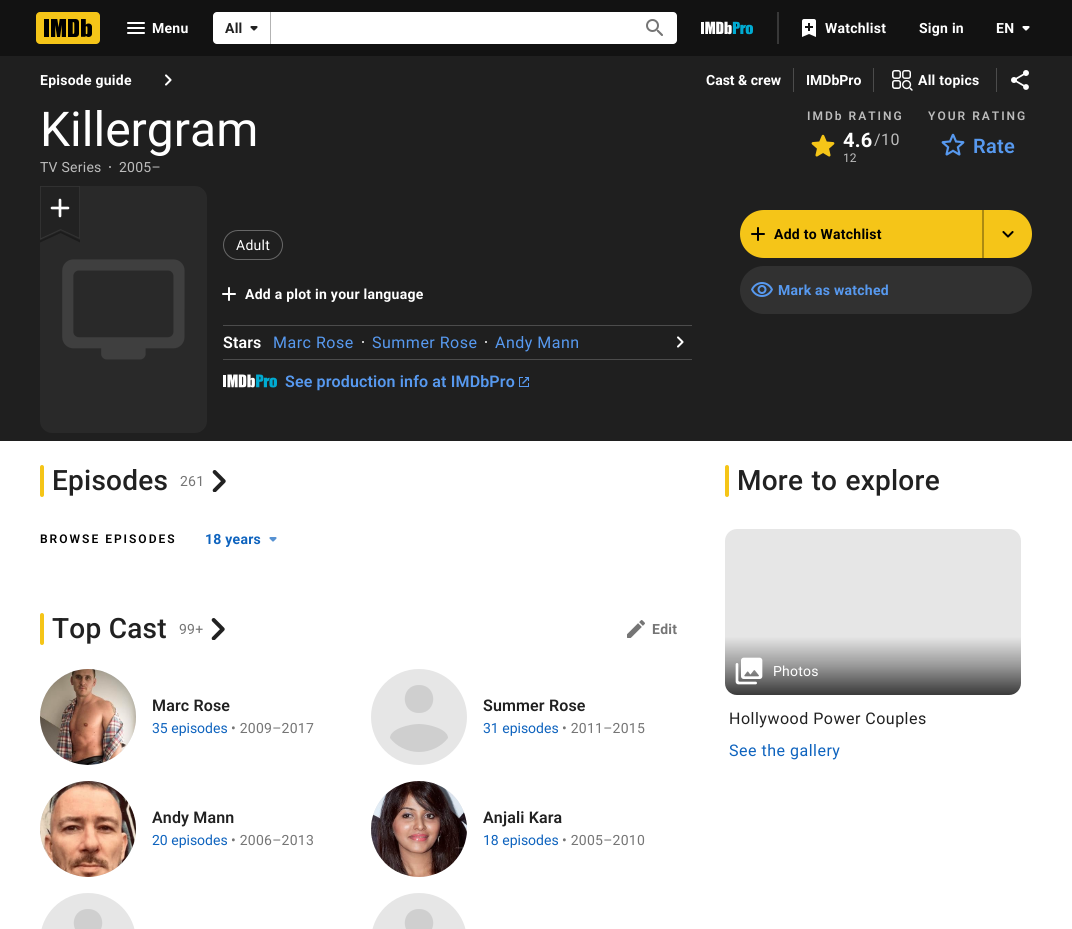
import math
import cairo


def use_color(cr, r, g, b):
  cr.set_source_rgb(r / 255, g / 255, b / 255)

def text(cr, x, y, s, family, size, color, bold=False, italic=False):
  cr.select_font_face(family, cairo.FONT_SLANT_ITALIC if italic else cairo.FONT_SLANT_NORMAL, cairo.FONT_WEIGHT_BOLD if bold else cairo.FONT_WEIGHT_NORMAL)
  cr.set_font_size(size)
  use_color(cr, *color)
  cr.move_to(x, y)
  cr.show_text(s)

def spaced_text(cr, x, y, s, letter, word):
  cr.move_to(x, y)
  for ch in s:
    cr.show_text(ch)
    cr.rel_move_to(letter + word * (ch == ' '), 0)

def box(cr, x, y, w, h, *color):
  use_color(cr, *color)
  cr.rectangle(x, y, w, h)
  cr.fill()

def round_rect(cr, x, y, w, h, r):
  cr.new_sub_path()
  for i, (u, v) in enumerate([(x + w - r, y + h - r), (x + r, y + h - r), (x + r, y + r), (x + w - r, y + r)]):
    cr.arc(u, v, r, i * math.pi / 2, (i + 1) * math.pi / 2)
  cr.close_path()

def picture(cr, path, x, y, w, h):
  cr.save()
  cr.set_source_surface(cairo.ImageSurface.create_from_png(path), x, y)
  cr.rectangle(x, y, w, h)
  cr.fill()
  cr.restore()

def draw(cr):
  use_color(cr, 255, 255, 255)
  cr.paint()
  box(cr, 0, 0, 1072, 56, 18, 18, 18)
  picture(cr, "img_01.png", 36, 12, 64, 32)
  picture(cr, "img_02.png", 127, 22, 18, 12)
  use_color(cr, 255, 255, 255)
  round_rect(cr, 213, 12, 464, 32, 4)
  cr.fill()
  box(cr, 270, 12, 1, 32, 179, 179, 179)
  picture(cr, "img_03.png", 250, 26, 8, 5)
  picture(cr, "img_04.png", 646, 19, 17, 17)
  picture(cr, "img_05.png", 701, 21, 52, 14)
  box(cr, 777, 12, 2, 32, 56, 56, 56)
  picture(cr, "img_06.png", 802, 19, 14, 18)
  picture(cr, "img_07.png", 1022, 26, 8, 5)
  box(cr, 0, 56, 1072, 385, 31, 31, 31)
  picture(cr, "img_08.png", 165, 74, 7, 12)
  box(cr, 793, 68, 1, 24, 76, 76, 76)
  box(cr, 873, 68, 1, 24, 76, 76, 76)
  picture(cr, "img_09.png", 892, 70, 21, 21)
  box(cr, 996, 68, 1, 24, 76, 76, 76)
  picture(cr, "img_10.png", 1011, 70, 18, 20)
  use_color(cr, 188, 188, 188)
  cr.arc(110, 167, 1, 0, 2 * math.pi)
  cr.fill()
  picture(cr, "img_11.png", 811, 134, 24, 23)
  picture(cr, "img_12.png", 941, 133, 24, 23)
  use_color(cr, 18, 18, 18)
  cr.new_path()
  cr.move_to(40, 186)
  cr.line_to(195, 186)
  cr.curve_to(201.5, 186, 207, 191.5, 207, 198)
  cr.line_to(207, 421)
  cr.curve_to(207, 427.5, 201.5, 433, 195, 433)
  cr.line_to(52, 433)
  cr.curve_to(45.5, 433, 40, 427.5, 40, 421)
  cr.close_path()
  cr.fill()
  cr.set_source_rgba(1, 1, 1, 0.1)
  cr.new_path()
  cr.move_to(40, 186)
  cr.line_to(195, 186)
  cr.curve_to(201.5, 186, 207, 191.5, 207, 198)
  cr.line_to(207, 421)
  cr.curve_to(207, 427.5, 201.5, 433, 195, 433)
  cr.line_to(52, 433)
  cr.curve_to(45.5, 433, 40, 427.5, 40, 421)
  cr.close_path()
  cr.fill()
  picture(cr, "img_13.png", 62, 259, 123, 101)
  use_color(cr, 34, 34, 34)
  cr.new_path()
  cr.move_to(80, 186)
  cr.line_to(40, 186)
  cr.line_to(40, 239)
  cr.line_to(60, 230)
  cr.line_to(80, 239)
  cr.close_path()
  cr.fill()
  cr.save()
  cr.rectangle(40, 186, 40, 57)
  cr.clip()
  cr.new_path()
  cr.move_to(80, 186)
  cr.line_to(40, 186)
  cr.line_to(40, 239.5)
  cr.line_to(60.5, 230)
  cr.line_to(80, 239)
  cr.close_path()
  cr.set_source_rgba(1, 1, 1, 0.08)
  cr.set_line_width(1.7)
  cr.stroke()
  cr.restore()
  picture(cr, "img_14.png", 50, 198, 20, 20)
  cr.set_source_rgba(0, 0, 0, 0.32)
  cr.new_path()
  cr.move_to(80, 239)
  cr.line_to(80, 242.5)
  cr.line_to(60.5, 233)
  cr.line_to(40, 242.5)
  cr.line_to(40, 239.5)
  cr.line_to(60.5, 230)
  cr.close_path()
  cr.fill()
  round_rect(cr, 223.5, 230.5, 59, 29, 14.5)
  use_color(cr, 103, 103, 103)
  cr.set_line_width(1)
  cr.stroke()
  picture(cr, "img_15.png", 222, 287, 14, 14)
  box(cr, 223, 325, 469, 1, 76, 76, 76)
  box(cr, 223, 359, 469, 1, 76, 76, 76)
  use_color(cr, 255, 255, 255)
  cr.arc(363, 342, 1, 0, 2 * math.pi)
  cr.fill()
  cr.arc(486, 342, 1, 0, 2 * math.pi)
  cr.fill()
  picture(cr, "img_08.png", 677, 336, 7, 12)
  picture(cr, "img_16.png", 223, 374, 54, 14)
  picture(cr, "img_17.png", 519, 377, 10, 10)
  use_color(cr, 245, 197, 24)
  cr.new_path()
  cr.move_to(764, 210)
  cr.line_to(984, 210)
  cr.line_to(984, 258)
  cr.line_to(764, 258)
  cr.curve_to(750.5, 258, 740, 247.5, 740, 234)
  cr.curve_to(740, 220.5, 750.5, 210, 764, 210)
  cr.close_path()
  cr.fill()
  box(cr, 982, 210, 2, 48, 172, 138, 17)
  picture(cr, "img_18.png", 751, 227, 14, 14)
  use_color(cr, 245, 197, 24)
  cr.new_path()
  cr.move_to(984, 210)
  cr.line_to(1008, 210)
  cr.curve_to(1021.5, 210, 1032, 220.5, 1032, 234)
  cr.curve_to(1032, 247.5, 1021.5, 258, 1008, 258)
  cr.line_to(984, 258)
  cr.close_path()
  cr.fill()
  picture(cr, "img_19.png", 1002, 231, 12, 7)
  use_color(cr, 49, 49, 49)
  round_rect(cr, 740, 266, 292, 48, 24)
  cr.fill()
  picture(cr, "img_20.png", 751, 282, 22, 15)
  use_color(cr, 245, 197, 24)
  round_rect(cr, 40, 465, 4, 32, 2)
  cr.fill()
  picture(cr, "img_21.png", 212, 470, 14, 22)
  picture(cr, "img_22.png", 269, 537, 8, 5)
  round_rect(cr, 40, 613, 4, 32, 2)
  cr.fill()
  picture(cr, "img_21.png", 211, 618, 14, 22)
  picture(cr, "img_23.png", 627, 620, 18, 18)
  use_color(cr, 230, 230, 230)
  cr.arc(88, 717, 48, 0, 2 * math.pi)
  cr.fill()
  picture(cr, "img_24.png", 40, 669, 96, 96)
  cr.arc(419, 717, 48, 0, 2 * math.pi)
  cr.fill()
  use_color(cr, 207, 207, 207)
  cr.new_path()
  cr.move_to(419, 685)
  cr.curve_to(438, 685, 438, 713, 419, 713)
  cr.curve_to(400, 713, 400, 685, 419, 685)
  cr.close_path()
  cr.move_to(419, 752)
  cr.curve_to(407, 752, 396, 746, 390, 738)
  cr.curve_to(390, 729, 409, 724, 419, 724)
  cr.curve_to(429, 724, 448, 729, 448, 738)
  cr.curve_to(442, 746, 431, 752, 419, 752)
  cr.close_path()
  cr.fill()
  use_color(cr, 230, 230, 230)
  cr.arc(88, 829, 48, 0, 2 * math.pi)
  cr.fill()
  picture(cr, "img_25.png", 40, 781, 96, 96)
  cr.arc(419, 829, 48, 0, 2 * math.pi)
  cr.fill()
  picture(cr, "img_26.png", 371, 781, 96, 96)
  round_rect(cr, 40, 893, 96, 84, 48)
  cr.fill()
  use_color(cr, 207, 207, 207)
  cr.new_path()
  cr.move_to(88, 909)
  cr.curve_to(107, 909, 107, 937, 88, 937)
  cr.curve_to(69, 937, 69, 909, 88, 909)
  cr.close_path()
  cr.move_to(88, 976)
  cr.curve_to(76, 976, 65, 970, 59, 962)
  cr.curve_to(59, 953, 78, 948, 88, 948)
  cr.curve_to(98, 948, 117, 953, 117, 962)
  cr.curve_to(111, 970, 100, 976, 88, 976)
  cr.close_path()
  cr.fill()
  use_color(cr, 230, 230, 230)
  round_rect(cr, 371, 893, 96, 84, 48)
  cr.fill()
  use_color(cr, 207, 207, 207)
  cr.new_path()
  cr.move_to(419, 909)
  cr.curve_to(438, 909, 438, 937, 419, 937)
  cr.curve_to(400, 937, 400, 909, 419, 909)
  cr.close_path()
  cr.move_to(419, 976)
  cr.curve_to(407, 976, 396, 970, 390, 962)
  cr.curve_to(390, 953, 409, 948, 419, 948)
  cr.curve_to(429, 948, 448, 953, 448, 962)
  cr.curve_to(442, 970, 431, 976, 419, 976)
  cr.close_path()
  cr.fill()
  use_color(cr, 245, 197, 24)
  round_rect(cr, 725, 465, 4, 32, 2)
  cr.fill()
  use_color(cr, 230, 230, 230)
  round_rect(cr, 725, 529, 296, 166, 12)
  cr.fill()
  gradient = cairo.LinearGradient(873, 529, 873, 695)
  gradient.add_color_stop_rgba(0, 0, 0, 0, 0)
  gradient.add_color_stop_rgba(0.65, 0, 0, 0, 0)
  gradient.add_color_stop_rgba(0.83, 0, 0, 0, 0.35)
  gradient.add_color_stop_rgba(1, 0, 0, 0, 0.75)
  cr.set_source(gradient)
  round_rect(cr, 725, 529, 296, 166, 12)
  cr.fill()
  picture(cr, "img_27.png", 735, 657, 28, 28)
  cr.select_font_face("Roboto", cairo.FONT_SLANT_NORMAL, cairo.FONT_WEIGHT_BOLD)
  cr.set_font_size(14)
  use_color(cr, 255, 255, 255)
  spaced_text(cr, 152, 33, "Menu", 0.25, 0)
  use_color(cr, 33, 33, 33)
  spaced_text(cr, 225, 33, "All", 0.25, 0)
  use_color(cr, 255, 255, 255)
  spaced_text(cr, 825, 33, "Watchlist", 0.25, 0)
  spaced_text(cr, 919, 33, "Sign in", 0.25, 0)
  spaced_text(cr, 996, 33, "EN", 0.25, 0)
  spaced_text(cr, 40, 85, "Episode guide", 0.25, 0)
  text(cr, 706, 85, "Cast & crew", "Roboto", 14, (255, 255, 255), bold=True)
  text(cr, 806, 85, "IMDbPro", "Roboto", 14, (255, 255, 255), bold=True)
  spaced_text(cr, 918, 85, "All topics", 0.25, 0)
  text(cr, 40, 146, "Killergram", "Roboto", 48, (255, 255, 255))
  cr.set_font_size(14)
  use_color(cr, 188, 188, 188)
  spaced_text(cr, 40, 172, "TV Series", 0.25, 0)
  spaced_text(cr, 119, 172, "2005–", 0.25, 0)
  cr.select_font_face("Roboto SemiBold")
  cr.set_font_size(12)
  spaced_text(cr, 807, 120, "IMDb RATING", 2, 0)
  cr.select_font_face("Roboto", cairo.FONT_SLANT_NORMAL, cairo.FONT_WEIGHT_BOLD)
  cr.set_font_size(20)
  use_color(cr, 255, 255, 255)
  spaced_text(cr, 843, 147, "4.6", 0.25, 0)
  cr.select_font_face("Roboto")
  cr.set_font_size(16)
  use_color(cr, 188, 188, 188)
  spaced_text(cr, 874, 145, "/10", 0.5, 0)
  text(cr, 843, 162, "12", "Roboto", 12, (188, 188, 188))
  cr.select_font_face("Roboto SemiBold")
  spaced_text(cr, 928, 120, "YOUR RATING", 2, 0)
  cr.set_font_size(20)
  use_color(cr, 87, 153, 239)
  spaced_text(cr, 973, 153, "Rate", 0.25, 0)
  cr.select_font_face("Roboto")
  cr.set_font_size(14)
  use_color(cr, 255, 255, 255)
  spaced_text(cr, 236, 250, "Adult", 0.25, 0)
  cr.select_font_face("Roboto", cairo.FONT_SLANT_NORMAL, cairo.FONT_WEIGHT_BOLD)
  spaced_text(cr, 245, 299, "Add a plot in your language", 0.25, 0)
  cr.select_font_face("Roboto SemiBold")
  cr.set_font_size(16)
  spaced_text(cr, 223, 348, "Stars", 0.15, 0)
  cr.select_font_face("Roboto")
  use_color(cr, 87, 153, 239)
  spaced_text(cr, 273, 348, "Marc Rose", 0.5, 0)
  spaced_text(cr, 372, 348, "Summer Rose", 0.5, 0)
  spaced_text(cr, 495, 348, "Andy Mann", 0.5, 0)
  cr.select_font_face("Roboto SemiBold")
  spaced_text(cr, 285, 387, "See production info at IMDbPro", 0.15, 0)
  cr.select_font_face("Roboto", cairo.FONT_SLANT_NORMAL, cairo.FONT_WEIGHT_BOLD)
  cr.set_font_size(14)
  use_color(cr, 0, 0, 0)
  spaced_text(cr, 774, 239, "Add to Watchlist", 0.25, 0)
  use_color(cr, 87, 153, 239)
  spaced_text(cr, 778, 295, "Mark as watched", 0.25, 0)
  cr.select_font_face("Roboto Medium")
  cr.set_font_size(28)
  use_color(cr, 33, 33, 33)
  spaced_text(cr, 52, 490, "Episodes", 0.25, 0)
  cr.select_font_face("Roboto")
  cr.set_font_size(14)
  use_color(cr, 117, 117, 117)
  spaced_text(cr, 180, 486, "261", 0.25, 0)
  cr.select_font_face("Roboto SemiBold")
  cr.set_font_size(12)
  use_color(cr, 0, 0, 0)
  spaced_text(cr, 40, 543, "BROWSE EPISODES", 2, 0)
  cr.select_font_face("Roboto", cairo.FONT_SLANT_NORMAL, cairo.FONT_WEIGHT_BOLD)
  cr.set_font_size(14)
  use_color(cr, 14, 99, 190)
  spaced_text(cr, 205, 544, "18 years", 0.25, 0)
  cr.select_font_face("Roboto Medium")
  cr.set_font_size(28)
  use_color(cr, 33, 33, 33)
  spaced_text(cr, 52, 638, "Top Cast", 0.25, 0)
  cr.select_font_face("Roboto")
  cr.set_font_size(14)
  use_color(cr, 117, 117, 117)
  spaced_text(cr, 179, 634, "99+", 0.25, 0)
  cr.select_font_face("Roboto", cairo.FONT_SLANT_NORMAL, cairo.FONT_WEIGHT_BOLD)
  spaced_text(cr, 652, 634, "Edit", 0.25, 0)
  cr.select_font_face("Roboto SemiBold")
  cr.set_font_size(16)
  use_color(cr, 33, 33, 33)
  spaced_text(cr, 152, 711, "Marc Rose", 0.15, 0)
  text(cr, 152, 733, "35 episodes", "Roboto", 14, (14, 99, 190))
  use_color(cr, 117, 117, 117)
  spaced_text(cr, 231, 733, "• 2009–2017", 0.25, 0)
  cr.select_font_face("Roboto SemiBold")
  cr.set_font_size(16)
  use_color(cr, 33, 33, 33)
  spaced_text(cr, 483, 711, "Summer Rose", 0.15, 0)
  text(cr, 483, 733, "31 episodes", "Roboto", 14, (14, 99, 190))
  use_color(cr, 117, 117, 117)
  spaced_text(cr, 562, 733, "• 2011–2015", 0.25, 0)
  cr.select_font_face("Roboto SemiBold")
  cr.set_font_size(16)
  use_color(cr, 33, 33, 33)
  spaced_text(cr, 152, 823, "Andy Mann", 0.15, 0)
  text(cr, 152, 845, "20 episodes", "Roboto", 14, (14, 99, 190))
  use_color(cr, 117, 117, 117)
  spaced_text(cr, 231, 845, "• 2006–2013", 0.25, 0)
  cr.select_font_face("Roboto SemiBold")
  cr.set_font_size(16)
  use_color(cr, 33, 33, 33)
  spaced_text(cr, 483, 823, "Anjali Kara", 0.15, 0)
  text(cr, 483, 845, "18 episodes", "Roboto", 14, (14, 99, 190))
  use_color(cr, 117, 117, 117)
  spaced_text(cr, 562, 845, "• 2005–2010", 0.25, 0)
  cr.select_font_face("Roboto Medium")
  cr.set_font_size(28)
  use_color(cr, 33, 33, 33)
  spaced_text(cr, 737, 490, "More to explore", 0.25, 1)
  cr.select_font_face("Roboto")
  cr.set_font_size(14)
  use_color(cr, 255, 255, 255)
  spaced_text(cr, 773, 676, "Photos", 0.25, 0)
  cr.set_font_size(16)
  use_color(cr, 33, 33, 33)
  spaced_text(cr, 729, 724, "Hollywood Power Couples", 0.5, 0)
  use_color(cr, 14, 99, 190)
  spaced_text(cr, 729, 756, "See the gallery", 0.5, 0)


surface = cairo.ImageSurface(cairo.FORMAT_RGB24, 1072, 929)
cr = cairo.Context(surface)
options = cairo.FontOptions()
options.set_hint_metrics(cairo.HINT_METRICS_OFF)
options.set_hint_style(cairo.HINT_STYLE_NONE)
cr.set_font_options(options)
cr.set_miter_limit(4)
draw(cr)
surface.write_to_png("out.png")
